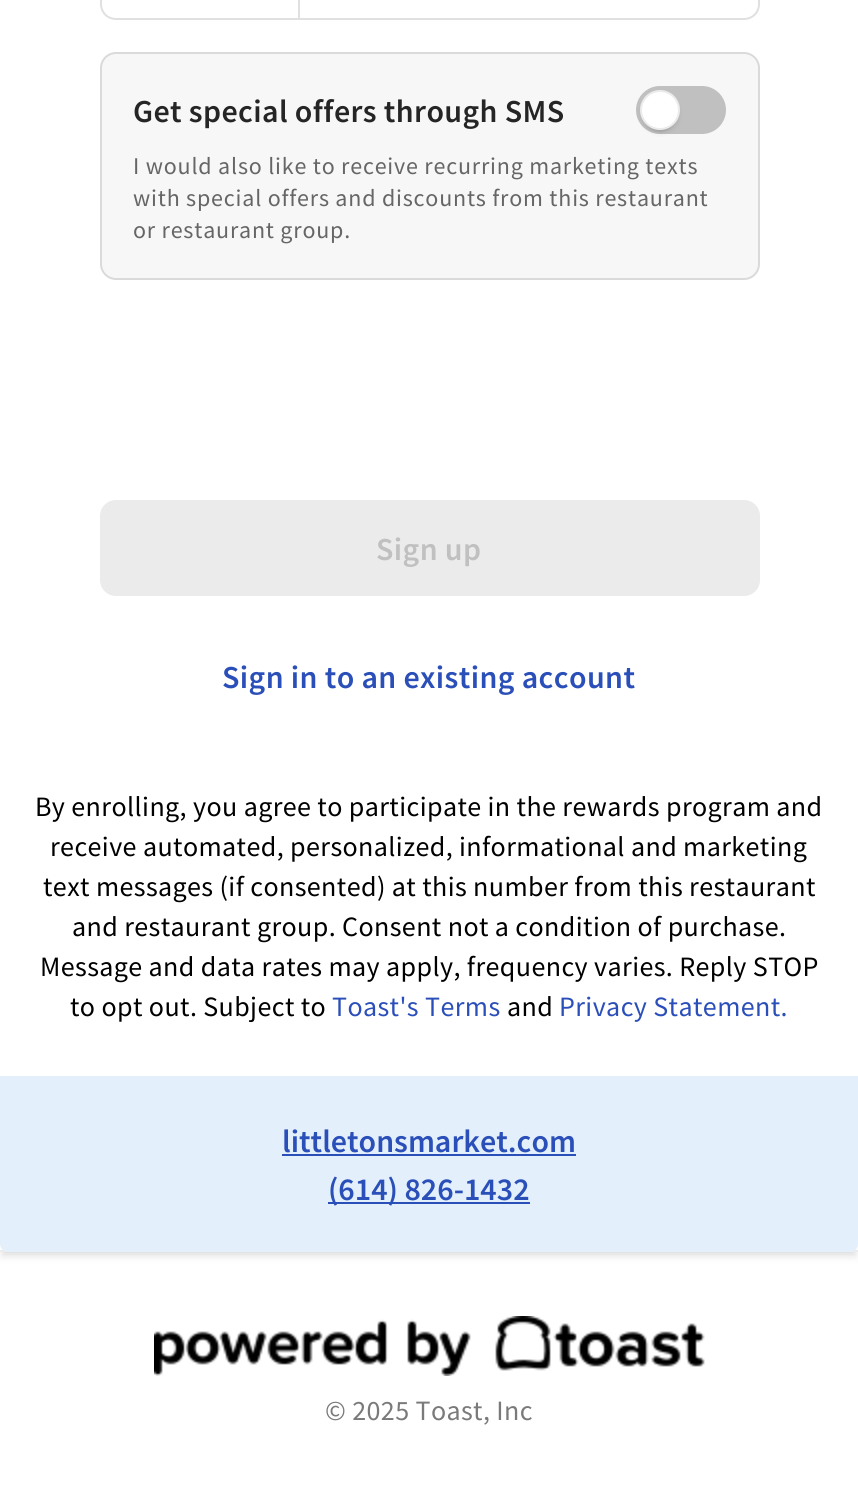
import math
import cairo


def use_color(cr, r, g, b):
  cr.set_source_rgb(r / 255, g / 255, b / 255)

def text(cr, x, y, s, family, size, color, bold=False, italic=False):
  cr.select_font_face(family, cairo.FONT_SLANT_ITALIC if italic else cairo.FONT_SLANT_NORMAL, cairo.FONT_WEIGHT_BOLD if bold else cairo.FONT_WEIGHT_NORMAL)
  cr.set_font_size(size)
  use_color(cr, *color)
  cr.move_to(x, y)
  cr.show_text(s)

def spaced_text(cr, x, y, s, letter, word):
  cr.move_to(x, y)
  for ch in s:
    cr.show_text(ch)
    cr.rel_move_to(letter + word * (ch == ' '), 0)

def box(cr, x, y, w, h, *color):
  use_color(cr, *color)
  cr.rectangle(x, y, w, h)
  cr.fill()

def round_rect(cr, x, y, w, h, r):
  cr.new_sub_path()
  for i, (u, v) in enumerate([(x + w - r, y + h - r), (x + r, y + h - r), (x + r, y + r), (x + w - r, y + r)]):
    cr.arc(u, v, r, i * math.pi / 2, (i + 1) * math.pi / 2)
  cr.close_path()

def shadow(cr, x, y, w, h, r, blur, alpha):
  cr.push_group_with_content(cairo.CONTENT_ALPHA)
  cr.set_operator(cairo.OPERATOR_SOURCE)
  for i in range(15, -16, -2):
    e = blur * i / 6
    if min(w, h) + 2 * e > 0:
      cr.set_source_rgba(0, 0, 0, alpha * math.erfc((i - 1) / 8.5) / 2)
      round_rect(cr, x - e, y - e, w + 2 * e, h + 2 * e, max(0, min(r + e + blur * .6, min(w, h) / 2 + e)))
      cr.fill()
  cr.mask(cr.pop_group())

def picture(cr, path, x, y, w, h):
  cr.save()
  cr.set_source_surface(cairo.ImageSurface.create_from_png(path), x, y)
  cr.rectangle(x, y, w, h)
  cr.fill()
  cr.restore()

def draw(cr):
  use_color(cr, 255, 255, 255)
  cr.paint()
  use_color(cr, 0, 0, 0)
  shadow(cr, 0, -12, 858, 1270, 0, 4, 0.06)
  shadow(cr, 4, -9, 850, 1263, 0, 3, 0.09)
  box(cr, 0, 0, 858, 1250, 255, 255, 255)
  box(cr, 0, 1250, 858, 2, 235, 235, 235)
  cr.new_path()
  cr.move_to(116, -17)
  cr.line_to(299, -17)
  cr.line_to(299, 19)
  cr.line_to(116, 19)
  cr.curve_to(107.5, 19, 101, 12.5, 101, 4)
  cr.line_to(101, -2)
  cr.curve_to(101, -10.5, 107.5, -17, 116, -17)
  cr.close_path()
  use_color(cr, 224, 224, 224)
  cr.stroke()
  use_color(cr, 255, 255, 255)
  cr.new_path()
  cr.move_to(299, -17)
  cr.line_to(744, -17)
  cr.curve_to(752.5, -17, 759, -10.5, 759, -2)
  cr.line_to(759, 4)
  cr.curve_to(759, 12.5, 752.5, 19, 744, 19)
  cr.line_to(299, 19)
  cr.close_path()
  cr.fill_preserve()
  use_color(cr, 224, 224, 224)
  cr.stroke()
  use_color(cr, 247, 247, 247)
  round_rect(cr, 100, 52, 660, 228, 16)
  cr.fill()
  round_rect(cr, 101, 53, 658, 226, 15)
  cr.set_source_rgba(0, 0, 0, 0.12)
  cr.stroke()
  use_color(cr, 192, 192, 192)
  round_rect(cr, 636, 86, 90, 48, 24)
  cr.fill()
  use_color(cr, 0, 0, 0)
  shadow(cr, 640, 94, 40, 40, 20, 2, 0.06)
  shadow(cr, 644, 100, 32, 32, 16, 1, 0.09)
  use_color(cr, 255, 255, 255)
  cr.arc(660, 110, 20, 0, 2 * math.pi)
  cr.fill()
  cr.arc(660, 110, 19, 0, 2 * math.pi)
  cr.set_source_rgba(0, 0, 0, 0.08)
  cr.stroke()
  use_color(cr, 235, 235, 235)
  round_rect(cr, 100, 500, 660, 96, 16)
  cr.fill()
  use_color(cr, 227, 240, 251)
  cr.new_path()
  cr.move_to(0, 1076)
  cr.line_to(858, 1076)
  cr.line_to(858, 1244)
  cr.curve_to(858, 1248.5, 854.5, 1252, 850, 1252)
  cr.line_to(8, 1252)
  cr.curve_to(3.5, 1252, 0, 1248.5, 0, 1244)
  cr.close_path()
  cr.fill()
  box(cr, 282, 1154, 294, 2, 43, 79, 185)
  box(cr, 328, 1202, 202, 2, 43, 79, 185)
  picture(cr, "img_01.png", 154, 1316, 551, 60)
  cr.select_font_face("Source Sans Pro SemiBold")
  cr.set_font_size(32)
  use_color(cr, 37, 37, 37)
  spaced_text(cr, 133, 122, "Get special offers through SMS", 0.4, 0)
  cr.select_font_face("Source Sans Pro")
  cr.set_font_size(24)
  use_color(cr, 102, 102, 102)
  spaced_text(cr, 133, 174, "I would also like to receive recurring marketing texts", 0.8, 0)
  spaced_text(cr, 133, 206, "with special offers and discounts from this restaurant", 0.8, 0)
  spaced_text(cr, 133, 238, "or restaurant group.", 0.8, 0)
  cr.select_font_face("Source Sans Pro SemiBold")
  cr.set_font_size(32)
  use_color(cr, 192, 192, 192)
  spaced_text(cr, 376, 560, "Sign up", 0.4, 0)
  use_color(cr, 43, 79, 185)
  spaced_text(cr, 222, 688, "Sign in to an existing account", 0.4, 0)
  cr.select_font_face("Source Sans Pro")
  cr.set_font_size(28)
  use_color(cr, 0, 0, 0)
  spaced_text(cr, 35, 816, "By enrolling, you agree to participate in the rewards program and", 0.4, 0)
  spaced_text(cr, 50, 856, "receive automated, personalized, informational and marketing", 0.4, 0)
  spaced_text(cr, 43, 896, "text messages (if consented) at this number from this restaurant", 0.4, 0)
  spaced_text(cr, 72, 936, "and restaurant group. Consent not a condition of purchase.", 0.4, 0)
  spaced_text(cr, 40, 976, "Message and data rates may apply, frequency varies. Reply STOP", 0.4, 0)
  spaced_text(cr, 70, 1016, "to opt out. Subject to", 0.4, 0)
  use_color(cr, 43, 79, 185)
  spaced_text(cr, 332, 1016, "Toast's Terms", 0.4, 0)
  use_color(cr, 0, 0, 0)
  spaced_text(cr, 507, 1016, "and", 0.4, 0)
  use_color(cr, 43, 79, 185)
  spaced_text(cr, 559, 1016, "Privacy Statement.", 0.4, 0)
  text(cr, 282, 1152, "littletonsmarket.com", "Source Sans Pro SemiBold", 32, (43, 79, 185))
  text(cr, 328, 1200, "(614) 826-1432", "Source Sans Pro SemiBold", 32, (43, 79, 185))
  cr.select_font_face("Source Sans Pro")
  cr.set_font_size(28)
  use_color(cr, 122, 122, 122)
  spaced_text(cr, 325, 1420, "© 2025 Toast, Inc", 0.4, 0)


surface = cairo.ImageSurface(cairo.FORMAT_RGB24, 858, 1495)
cr = cairo.Context(surface)
options = cairo.FontOptions()
options.set_hint_metrics(cairo.HINT_METRICS_OFF)
options.set_hint_style(cairo.HINT_STYLE_NONE)
cr.set_font_options(options)
cr.set_miter_limit(4)
draw(cr)
surface.write_to_png("out.png")
